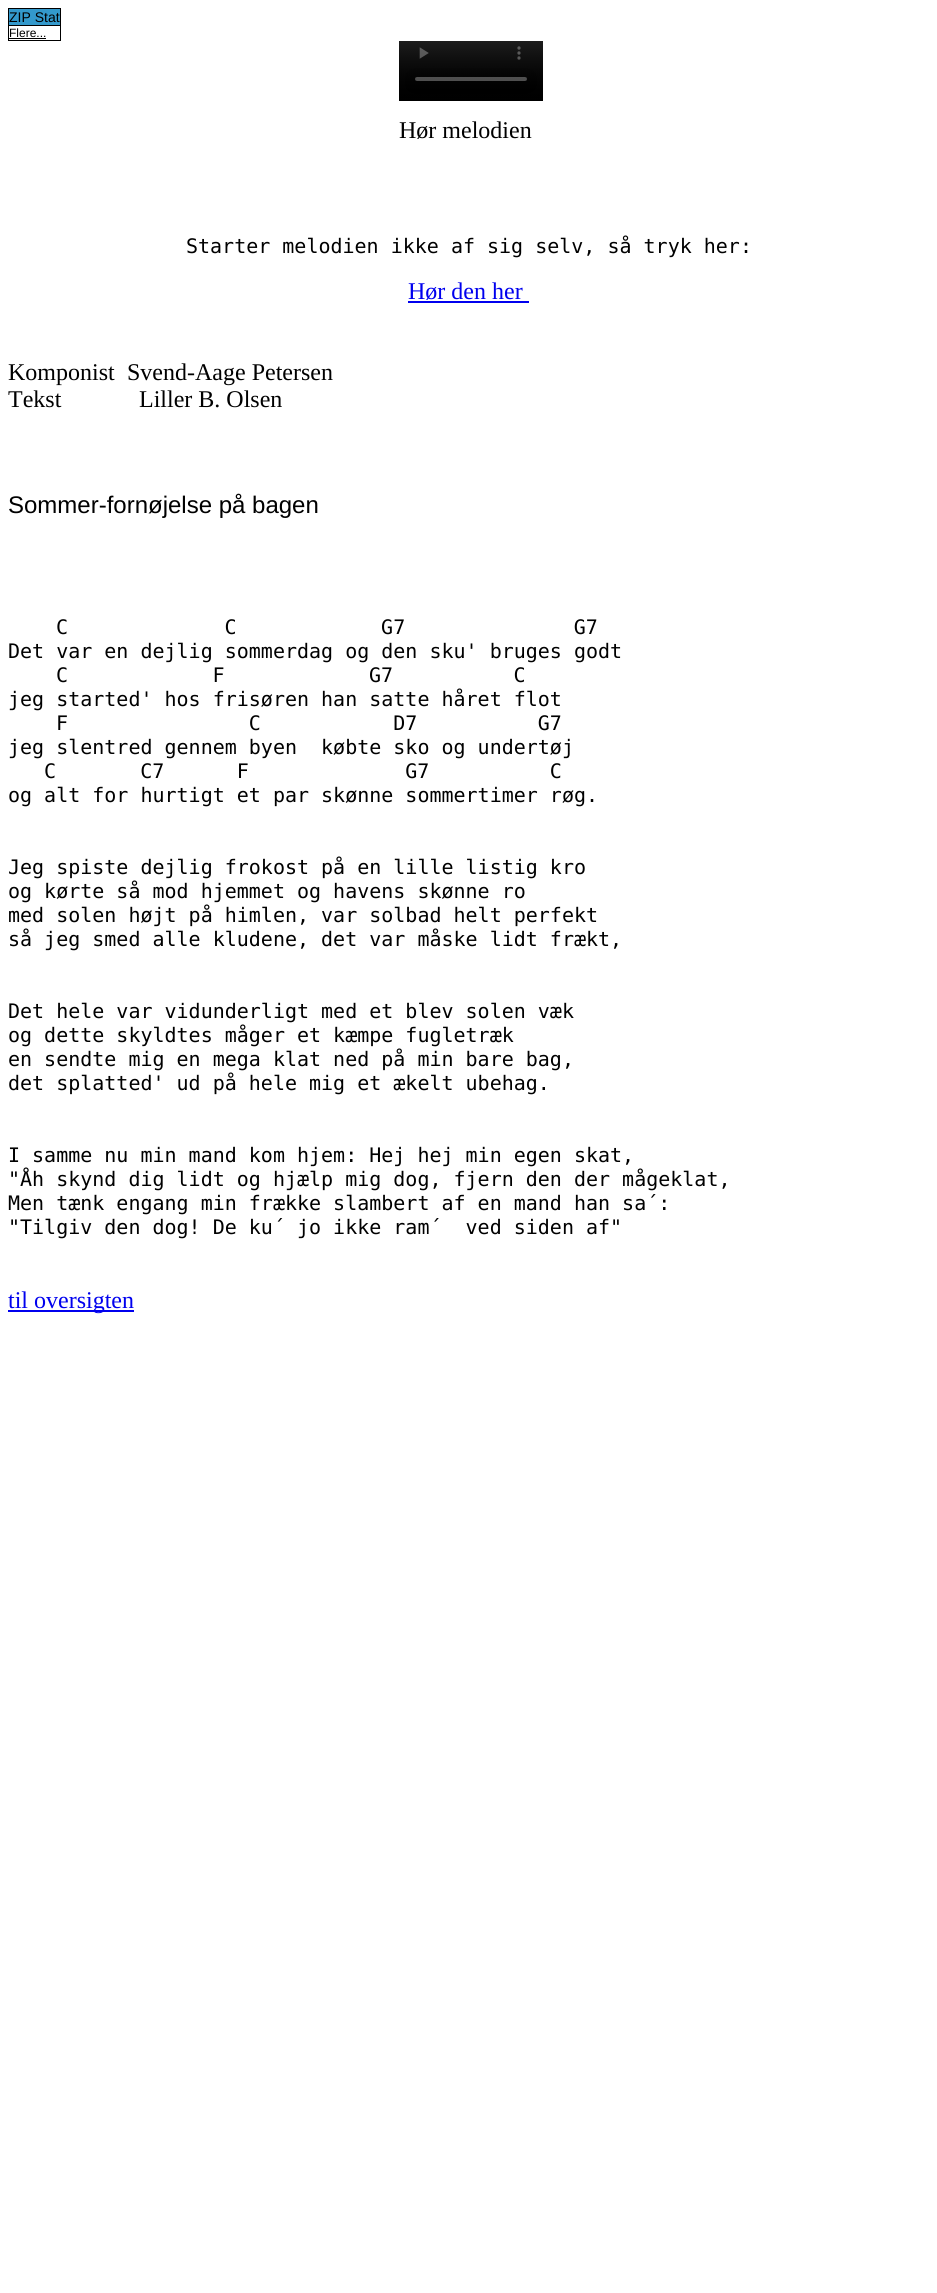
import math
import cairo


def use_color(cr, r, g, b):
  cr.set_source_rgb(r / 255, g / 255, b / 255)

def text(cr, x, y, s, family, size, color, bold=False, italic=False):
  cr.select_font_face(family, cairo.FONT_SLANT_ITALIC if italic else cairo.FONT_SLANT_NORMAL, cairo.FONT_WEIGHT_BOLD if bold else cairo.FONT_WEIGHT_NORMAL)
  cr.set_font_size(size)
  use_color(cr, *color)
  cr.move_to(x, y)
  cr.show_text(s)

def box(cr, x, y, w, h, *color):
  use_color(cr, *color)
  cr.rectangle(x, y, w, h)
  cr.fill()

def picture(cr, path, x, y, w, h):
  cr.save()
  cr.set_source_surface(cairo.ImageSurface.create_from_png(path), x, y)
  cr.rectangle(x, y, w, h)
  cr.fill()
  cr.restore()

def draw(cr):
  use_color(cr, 255, 255, 255)
  cr.paint()
  cr.rectangle(8.5, 8.5, 52, 32)
  use_color(cr, 0, 0, 0)
  cr.set_line_width(1)
  cr.stroke()
  box(cr, 9, 9, 51, 16, 51, 153, 204)
  box(cr, 9, 25, 51, 1, 0, 0, 0)
  box(cr, 9, 38, 37, 1, 0, 0, 0)
  picture(cr, "img_01.png", 399, 41, 144, 60)
  box(cr, 408, 301, 121, 2, 0, 0, 238)
  box(cr, 8, 1310, 126, 2, 0, 0, 238)
  text(cr, 9, 22, "ZIP Stat", "Liberation Sans", 14, (0, 0, 0))
  text(cr, 9, 37, "Flere...", "Liberation Sans", 12, (0, 0, 0))
  text(cr, 399, 138, "Hør melodien", "Liberation Serif", 24, (0, 0, 0))
  text(cr, 186, 253, "Starter melodien ikke af sig selv, så tryk her:", "DejaVu Sans Mono", 20, (0, 0, 0))
  text(cr, 408, 299, "Hør den her", "Liberation Serif", 24, (0, 0, 238))
  text(cr, 127, 380, "Svend-Aage Petersen", "Liberation Serif", 24, (0, 0, 0))
  text(cr, 8, 407, "Tekst", "Liberation Serif", 24, (0, 0, 0))
  text(cr, 139, 407, "Liller B. Olsen", "Liberation Serif", 24, (0, 0, 0))
  text(cr, 8, 513, "Sommer-fornøjelse på bagen", "Liberation Sans", 24, (0, 0, 0))
  text(cr, 56, 634, "C             C            G7              G7", "DejaVu Sans Mono", 20, (0, 0, 0))
  text(cr, 8, 658, "Det var en dejlig sommerdag og den sku' bruges godt", "DejaVu Sans Mono", 20, (0, 0, 0))
  text(cr, 56, 682, "C            F            G7          C", "DejaVu Sans Mono", 20, (0, 0, 0))
  text(cr, 8, 706, "jeg started' hos frisøren han satte håret flot", "DejaVu Sans Mono", 20, (0, 0, 0))
  text(cr, 56, 730, "F               C           D7          G7", "DejaVu Sans Mono", 20, (0, 0, 0))
  text(cr, 8, 754, "jeg slentred gennem byen  købte sko og undertøj", "DejaVu Sans Mono", 20, (0, 0, 0))
  text(cr, 44, 778, "C       C7      F             G7          C", "DejaVu Sans Mono", 20, (0, 0, 0))
  text(cr, 8, 802, "og alt for hurtigt et par skønne sommertimer røg.", "DejaVu Sans Mono", 20, (0, 0, 0))
  text(cr, 8, 874, "Jeg spiste dejlig frokost på en lille listig kro", "DejaVu Sans Mono", 20, (0, 0, 0))
  text(cr, 8, 898, "og kørte så mod hjemmet og havens skønne ro", "DejaVu Sans Mono", 20, (0, 0, 0))
  text(cr, 8, 922, "med solen højt på himlen, var solbad helt perfekt", "DejaVu Sans Mono", 20, (0, 0, 0))
  text(cr, 8, 946, "så jeg smed alle kludene, det var måske lidt frækt,", "DejaVu Sans Mono", 20, (0, 0, 0))
  text(cr, 8, 1018, "Det hele var vidunderligt med et blev solen væk", "DejaVu Sans Mono", 20, (0, 0, 0))
  text(cr, 8, 1042, "og dette skyldtes måger et kæmpe fugletræk", "DejaVu Sans Mono", 20, (0, 0, 0))
  text(cr, 8, 1066, "en sendte mig en mega klat ned på min bare bag,", "DejaVu Sans Mono", 20, (0, 0, 0))
  text(cr, 8, 1090, "det splatted' ud på hele mig et ækelt ubehag.", "DejaVu Sans Mono", 20, (0, 0, 0))
  text(cr, 8, 1162, "I samme nu min mand kom hjem: Hej hej min egen skat,", "DejaVu Sans Mono", 20, (0, 0, 0))
  text(cr, 8, 1186, "\"Åh skynd dig lidt og hjælp mig dog, fjern den der mågeklat,", "DejaVu Sans Mono", 20, (0, 0, 0))
  text(cr, 8, 1210, "Men tænk engang min frække slambert af en mand han sa´:", "DejaVu Sans Mono", 20, (0, 0, 0))
  text(cr, 8, 1234, "\"Tilgiv den dog! De ku´ jo ikke ram´  ved siden af\"", "DejaVu Sans Mono", 20, (0, 0, 0))
  text(cr, 8, 380, "Komponist", "Liberation Serif", 24, (0, 0, 0))
  text(cr, 8, 1308, "til oversigten", "Liberation Serif", 24, (0, 0, 238))


surface = cairo.ImageSurface(cairo.FORMAT_RGB24, 937, 2293)
cr = cairo.Context(surface)
options = cairo.FontOptions()
options.set_hint_metrics(cairo.HINT_METRICS_OFF)
options.set_hint_style(cairo.HINT_STYLE_NONE)
cr.set_font_options(options)
cr.set_miter_limit(4)
draw(cr)
surface.write_to_png("out.png")
